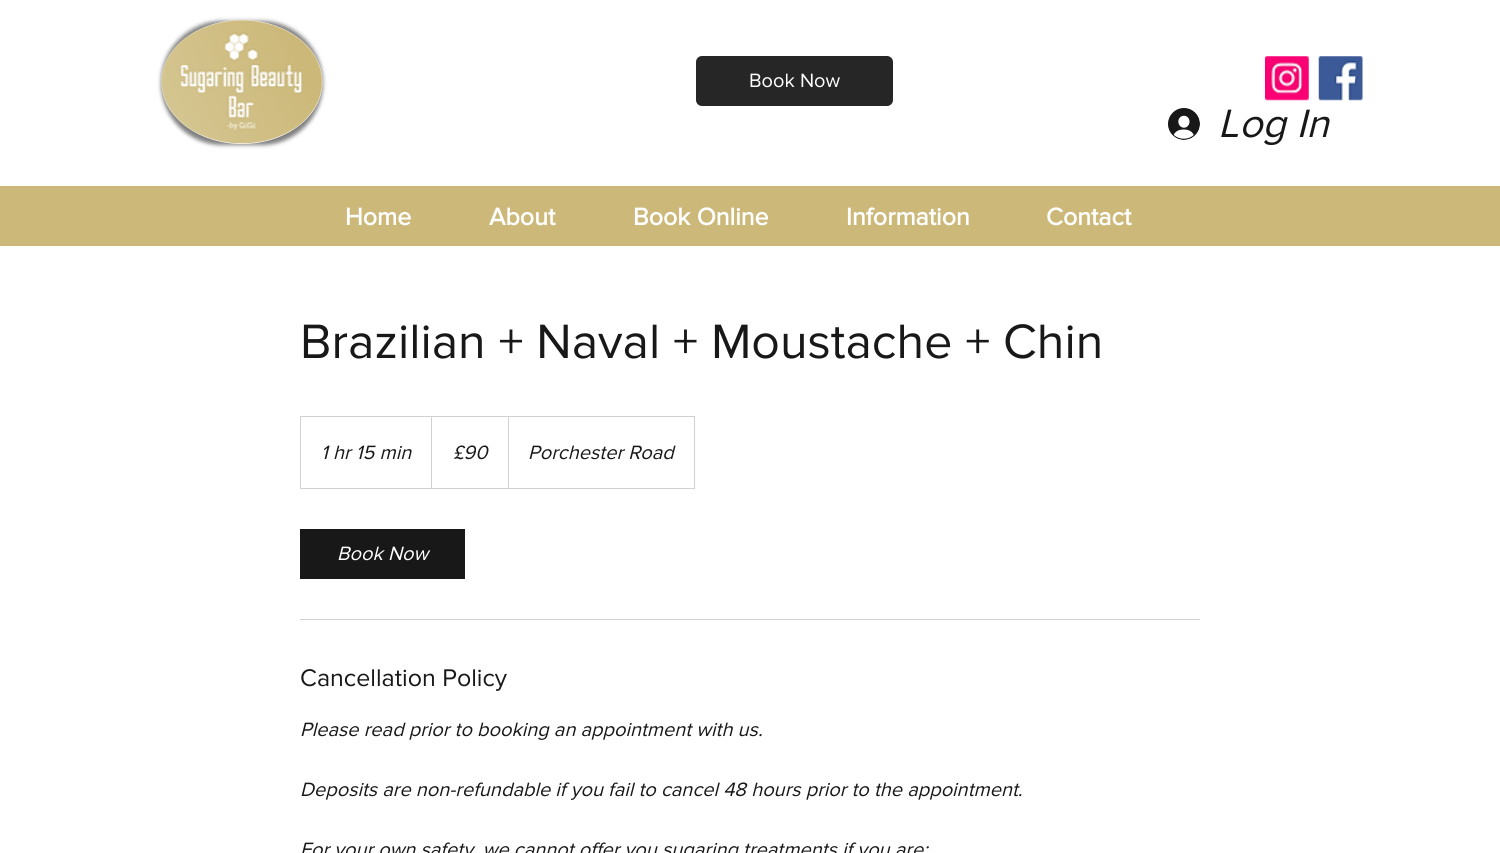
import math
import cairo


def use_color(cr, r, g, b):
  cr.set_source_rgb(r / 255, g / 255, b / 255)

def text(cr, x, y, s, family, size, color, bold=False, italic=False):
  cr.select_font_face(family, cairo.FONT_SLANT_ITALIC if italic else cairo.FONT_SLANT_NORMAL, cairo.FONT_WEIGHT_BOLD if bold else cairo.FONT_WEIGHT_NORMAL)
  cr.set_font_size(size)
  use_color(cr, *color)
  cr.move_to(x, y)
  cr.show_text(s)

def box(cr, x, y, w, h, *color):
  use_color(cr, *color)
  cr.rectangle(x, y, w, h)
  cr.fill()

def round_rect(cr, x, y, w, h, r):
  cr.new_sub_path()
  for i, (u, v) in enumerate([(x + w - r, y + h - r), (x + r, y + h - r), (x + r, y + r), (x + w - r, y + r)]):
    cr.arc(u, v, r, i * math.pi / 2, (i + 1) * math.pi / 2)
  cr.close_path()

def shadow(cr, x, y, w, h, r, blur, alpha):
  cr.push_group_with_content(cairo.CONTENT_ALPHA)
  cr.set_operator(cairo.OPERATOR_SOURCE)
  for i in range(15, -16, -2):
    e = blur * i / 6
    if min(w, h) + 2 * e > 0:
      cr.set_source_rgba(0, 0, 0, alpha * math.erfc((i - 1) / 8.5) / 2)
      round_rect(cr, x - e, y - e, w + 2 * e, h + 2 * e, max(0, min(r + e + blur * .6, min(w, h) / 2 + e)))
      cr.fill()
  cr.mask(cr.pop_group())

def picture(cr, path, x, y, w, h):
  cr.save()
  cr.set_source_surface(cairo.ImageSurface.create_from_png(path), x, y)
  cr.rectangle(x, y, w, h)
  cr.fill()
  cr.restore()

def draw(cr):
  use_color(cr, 255, 255, 255)
  cr.paint()
  use_color(cr, 0, 0, 0)
  shadow(cr, 161, 21, 162, 124, 62, 2, 0.5)
  use_color(cr, 255, 255, 255)
  cr.new_path()
  cr.move_to(242, 20)
  cr.curve_to(286.5, 20, 322.5, 48, 322.5, 82)
  cr.curve_to(322.5, 116, 286.5, 144, 242, 144)
  cr.curve_to(197.5, 144, 161.5, 116, 161.5, 82)
  cr.curve_to(161.5, 48, 197.5, 20, 242, 20)
  cr.close_path()
  cr.fill()
  picture(cr, "img_01.png", 161, 20, 162, 124)
  use_color(cr, 38, 38, 38)
  round_rect(cr, 696, 56, 197, 50, 6)
  cr.fill()
  picture(cr, "img_02.png", 1265, 56, 44, 45)
  picture(cr, "img_03.png", 1318, 56, 45, 45)
  picture(cr, "img_04.png", 1168, 108, 32, 32)
  box(cr, 0, 186, 1500, 60, 204, 185, 122)
  cr.rectangle(300.5, 416.5, 394, 72)
  use_color(cr, 209, 209, 209)
  cr.set_line_width(1)
  cr.stroke()
  cr.new_path()
  cr.move_to(431, 488)
  cr.line_to(431, 416)
  cr.line_to(432, 418)
  cr.line_to(432, 488)
  cr.close_path()
  cr.fill()
  cr.new_path()
  cr.move_to(508, 488)
  cr.line_to(508, 416)
  cr.line_to(509, 418)
  cr.line_to(509, 488)
  cr.close_path()
  cr.fill()
  box(cr, 300, 529, 165, 50, 24, 24, 24)
  box(cr, 300, 619, 900, 1, 209, 209, 209)
  text(cr, 749, 87, "Book Now", "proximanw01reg", 20, (255, 255, 255))
  text(cr, 1218, 137, "Log In", "proximanw01reg", 41, (24, 24, 24), italic=True)
  text(cr, 345, 225, "Home", "proximanw01reg", 25, (255, 255, 255), bold=True)
  text(cr, 489, 225, "About", "proximanw01reg", 25, (255, 255, 255), bold=True)
  text(cr, 633, 225, "Book Online", "proximanw01reg", 25, (255, 255, 255), bold=True)
  text(cr, 846, 225, "Information", "proximanw01reg", 25, (255, 255, 255), bold=True)
  text(cr, 1046, 225, "Contact", "proximanw01reg", 25, (255, 255, 255), bold=True)
  text(cr, 300, 358, "Brazilian + Naval + Moustache + Chin", "proximanw01reg", 50, (24, 24, 24))
  text(cr, 321, 459, "1 hr 15 min", "proximanw01reg", 20, (24, 24, 24), italic=True)
  text(cr, 453, 459, "£90", "proximanw01reg", 20, (24, 24, 24), italic=True)
  text(cr, 528, 459, "Porchester Road", "proximanw01reg", 20, (24, 24, 24), italic=True)
  text(cr, 337, 560, "Book Now", "proximanw01reg", 20, (255, 255, 255), italic=True)
  text(cr, 300, 686, "Cancellation Policy", "proximanw01reg", 25, (24, 24, 24))
  text(cr, 300, 736, "Please read prior to booking an appointment with us.", "proximanw01reg", 20, (24, 24, 24), italic=True)
  text(cr, 300, 796, "Deposits are non-refundable if you fail to cancel 48 hours prior to the appointment.", "proximanw01reg", 20, (24, 24, 24), italic=True)
  text(cr, 300, 856, "For your own safety, we cannot offer you sugaring treatments if you are:", "proximanw01reg", 20, (24, 24, 24), italic=True)


surface = cairo.ImageSurface(cairo.FORMAT_RGB24, 1500, 853)
cr = cairo.Context(surface)
options = cairo.FontOptions()
options.set_hint_metrics(cairo.HINT_METRICS_OFF)
options.set_hint_style(cairo.HINT_STYLE_NONE)
cr.set_font_options(options)
cr.set_miter_limit(4)
draw(cr)
surface.write_to_png("out.png")
